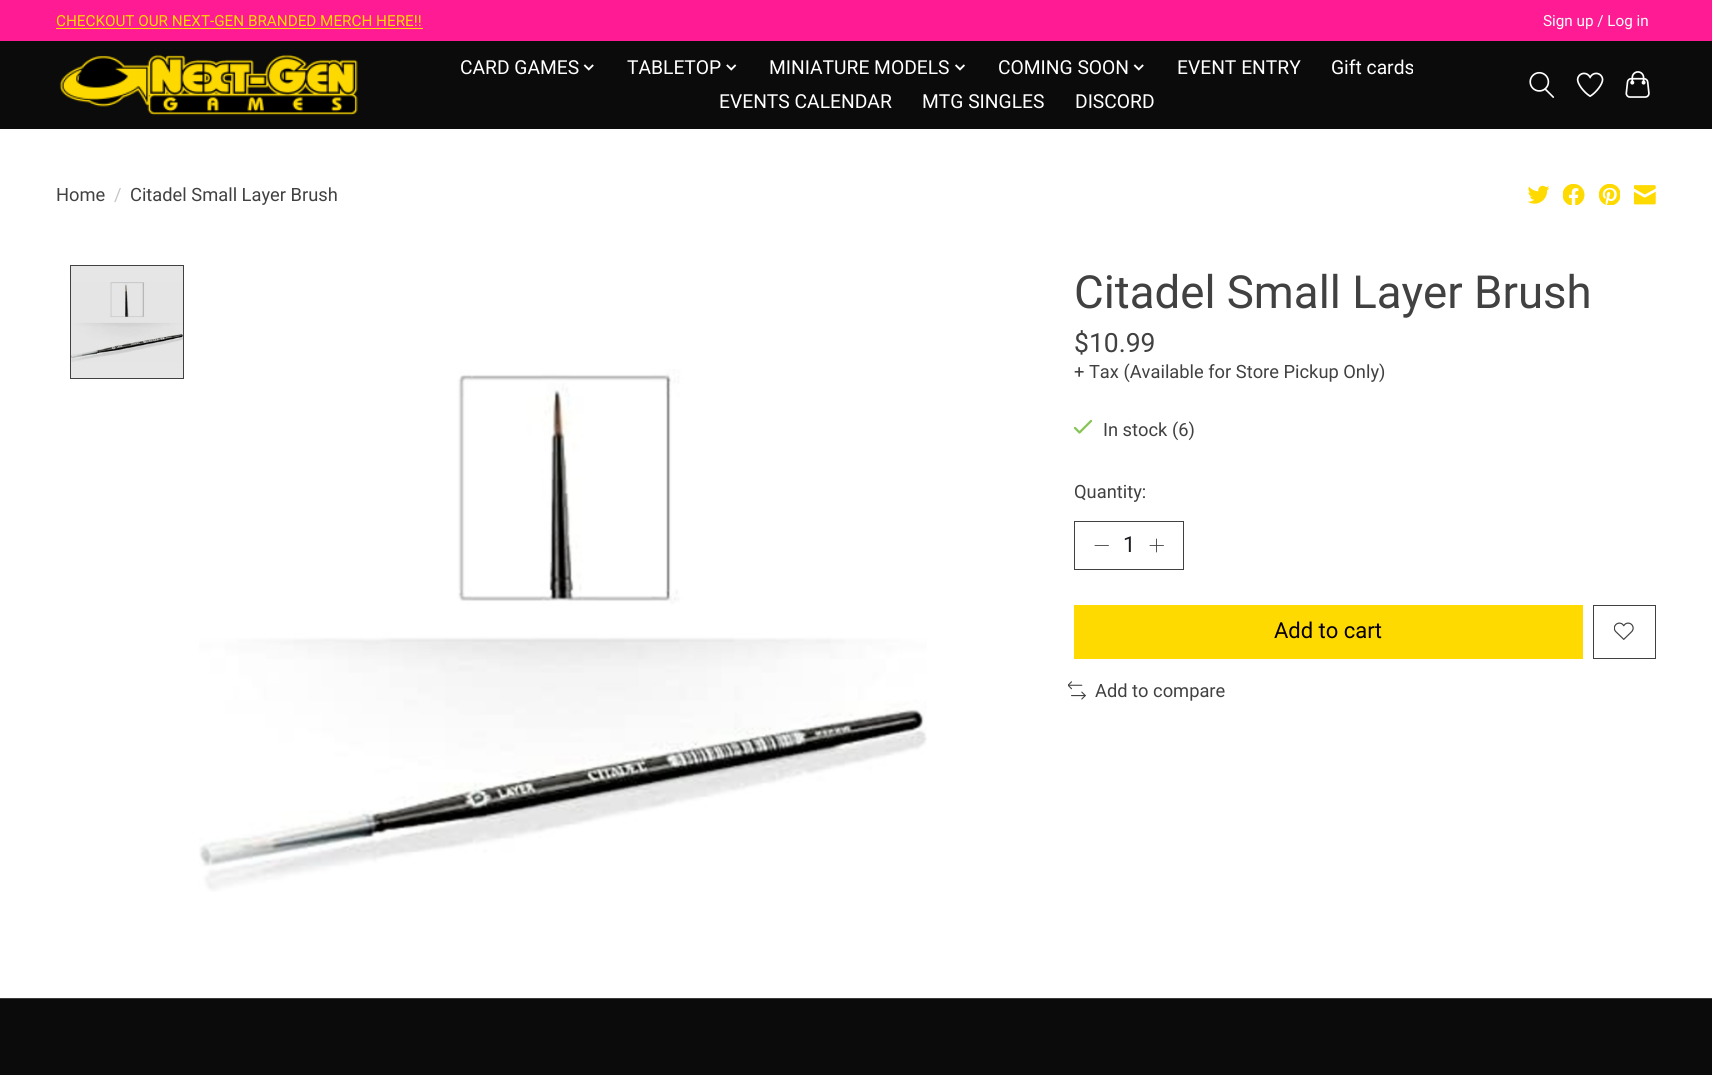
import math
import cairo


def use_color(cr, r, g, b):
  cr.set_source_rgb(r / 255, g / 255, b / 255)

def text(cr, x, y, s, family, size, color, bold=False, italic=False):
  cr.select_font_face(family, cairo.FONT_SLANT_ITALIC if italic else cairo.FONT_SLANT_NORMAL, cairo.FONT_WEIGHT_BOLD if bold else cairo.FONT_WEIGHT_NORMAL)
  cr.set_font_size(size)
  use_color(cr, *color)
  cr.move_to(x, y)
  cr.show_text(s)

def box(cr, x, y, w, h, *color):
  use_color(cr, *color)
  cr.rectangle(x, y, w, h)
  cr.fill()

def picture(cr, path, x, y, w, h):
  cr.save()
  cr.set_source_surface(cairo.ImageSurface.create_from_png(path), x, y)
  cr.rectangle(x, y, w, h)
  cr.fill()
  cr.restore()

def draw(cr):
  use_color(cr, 255, 255, 255)
  cr.paint()
  box(cr, 71, 266, 112, 112, 230, 230, 230)
  box(cr, 0, 41, 1712, 88, 11, 11, 11)
  box(cr, 0, 0, 1712, 41, 255, 27, 147)
  box(cr, 56, 28, 367, 1, 255, 218, 0)
  picture(cr, "img_01.png", 59, 54, 299, 62)
  picture(cr, "img_02.png", 583, 64, 11, 7)
  picture(cr, "img_03.png", 726, 64, 11, 7)
  picture(cr, "img_04.png", 955, 64, 10, 7)
  picture(cr, "img_02.png", 1133, 64, 11, 7)
  picture(cr, "img_05.png", 1529, 71, 26, 27)
  picture(cr, "img_06.png", 1576, 72, 28, 25)
  picture(cr, "img_07.png", 1625, 71, 25, 27)
  picture(cr, "img_08.png", 1528, 185, 21, 19)
  picture(cr, "img_09.png", 1563, 184, 22, 21)
  picture(cr, "img_10.png", 1599, 184, 21, 21)
  picture(cr, "img_11.png", 1634, 185, 22, 20)
  picture(cr, "img_12.png", 71, 282, 112, 80)
  cr.rectangle(70.5, 265.5, 113, 113)
  use_color(cr, 65, 65, 65)
  cr.set_line_width(1)
  cr.stroke()
  picture(cr, "img_13.png", 199, 369, 728, 523)
  cr.new_path()
  cr.move_to(1075, 428)
  cr.line_to(1079.5, 432.5)
  cr.line_to(1091, 421)
  use_color(cr, 136, 197, 89)
  cr.set_line_width(2.3)
  cr.set_line_cap(cairo.LINE_CAP_ROUND)
  cr.set_line_join(cairo.LINE_JOIN_ROUND)
  cr.stroke()
  cr.rectangle(1074.5, 521.5, 109, 48)
  use_color(cr, 65, 65, 65)
  cr.set_line_width(1)
  cr.set_line_cap(cairo.LINE_CAP_BUTT)
  cr.set_line_join(cairo.LINE_JOIN_MITER)
  cr.stroke()
  cr.new_path()
  cr.move_to(1095, 545.5)
  cr.line_to(1108.5, 545.5)
  cr.set_line_width(0.9)
  cr.set_line_cap(cairo.LINE_CAP_ROUND)
  cr.set_line_join(cairo.LINE_JOIN_ROUND)
  cr.stroke()
  cr.new_path()
  cr.move_to(1156.5, 539)
  cr.line_to(1156.5, 552)
  cr.move_to(1150, 545.5)
  cr.line_to(1163.5, 545.5)
  cr.stroke()
  box(cr, 1074, 605, 509, 54, 255, 218, 0)
  cr.rectangle(1593.5, 605.5, 62, 53)
  use_color(cr, 65, 65, 65)
  cr.set_line_width(1)
  cr.set_line_cap(cairo.LINE_CAP_BUTT)
  cr.set_line_join(cairo.LINE_JOIN_MITER)
  cr.stroke()
  picture(cr, "img_14.png", 1614, 622, 20, 18)
  picture(cr, "img_15.png", 1068, 681, 18, 19)
  box(cr, 0, 999, 1712, 76, 11, 11, 11)
  box(cr, 0, 998, 1712, 1, 60, 60, 60)
  text(cr, 56, 26, "CHECKOUT OUR NEXT-GEN BRANDED MERCH HERE!!", "Roboto", 15.25, (255, 218, 0))
  text(cr, 1543, 26, "Sign up / Log in", "Roboto", 15.25, (255, 255, 255))
  text(cr, 460, 74, "CARD GAMES", "Roboto", 19.25, (255, 255, 255))
  text(cr, 627, 74, "TABLETOP", "Roboto", 19.25, (255, 255, 255))
  text(cr, 769, 74, "MINIATURE MODELS", "Roboto", 19.25, (255, 255, 255))
  text(cr, 998, 74, "COMING SOON", "Roboto", 19.25, (255, 255, 255))
  text(cr, 1177, 74, "EVENT ENTRY", "Roboto", 19.25, (255, 255, 255))
  text(cr, 1331, 74, "Gift cards", "Roboto", 19.25, (255, 255, 255))
  text(cr, 719, 108, "EVENTS CALENDAR", "Roboto", 19.25, (255, 255, 255))
  text(cr, 922, 108, "MTG SINGLES", "Roboto", 19.25, (255, 255, 255))
  text(cr, 1075, 108, "DISCORD", "Roboto", 19.25, (255, 255, 255))
  text(cr, 56, 201, "Home", "Roboto", 18.3, (65, 65, 65))
  text(cr, 114, 201, "/", "Roboto", 18.3, (198, 198, 198))
  text(cr, 130, 201, "Citadel Small Layer Brush", "Roboto", 18.3, (65, 65, 65))
  text(cr, 1074, 308, "Citadel Small Layer Brush", "Roboto", 45.6, (65, 65, 65))
  text(cr, 1074, 352, "$10.99", "Roboto", 26.5, (65, 65, 65))
  text(cr, 1074, 378, "+ Tax (Available for Store Pickup Only)", "Roboto", 18.3, (65, 65, 65))
  text(cr, 1103, 436, "In stock (6)", "Roboto", 18.3, (65, 65, 65))
  text(cr, 1074, 498, "Quantity:", "Roboto", 18.3, (65, 65, 65))
  text(cr, 1123, 552, "1", "Roboto", 22, (28, 28, 33))
  text(cr, 1274, 638, "Add to cart", "Roboto", 22, (6, 0, 0))
  text(cr, 1095, 697, "Add to compare", "Roboto", 18.3, (65, 65, 65))


surface = cairo.ImageSurface(cairo.FORMAT_RGB24, 1712, 1075)
cr = cairo.Context(surface)
options = cairo.FontOptions()
options.set_hint_metrics(cairo.HINT_METRICS_OFF)
options.set_hint_style(cairo.HINT_STYLE_NONE)
cr.set_font_options(options)
cr.set_miter_limit(4)
draw(cr)
surface.write_to_png("out.png")
